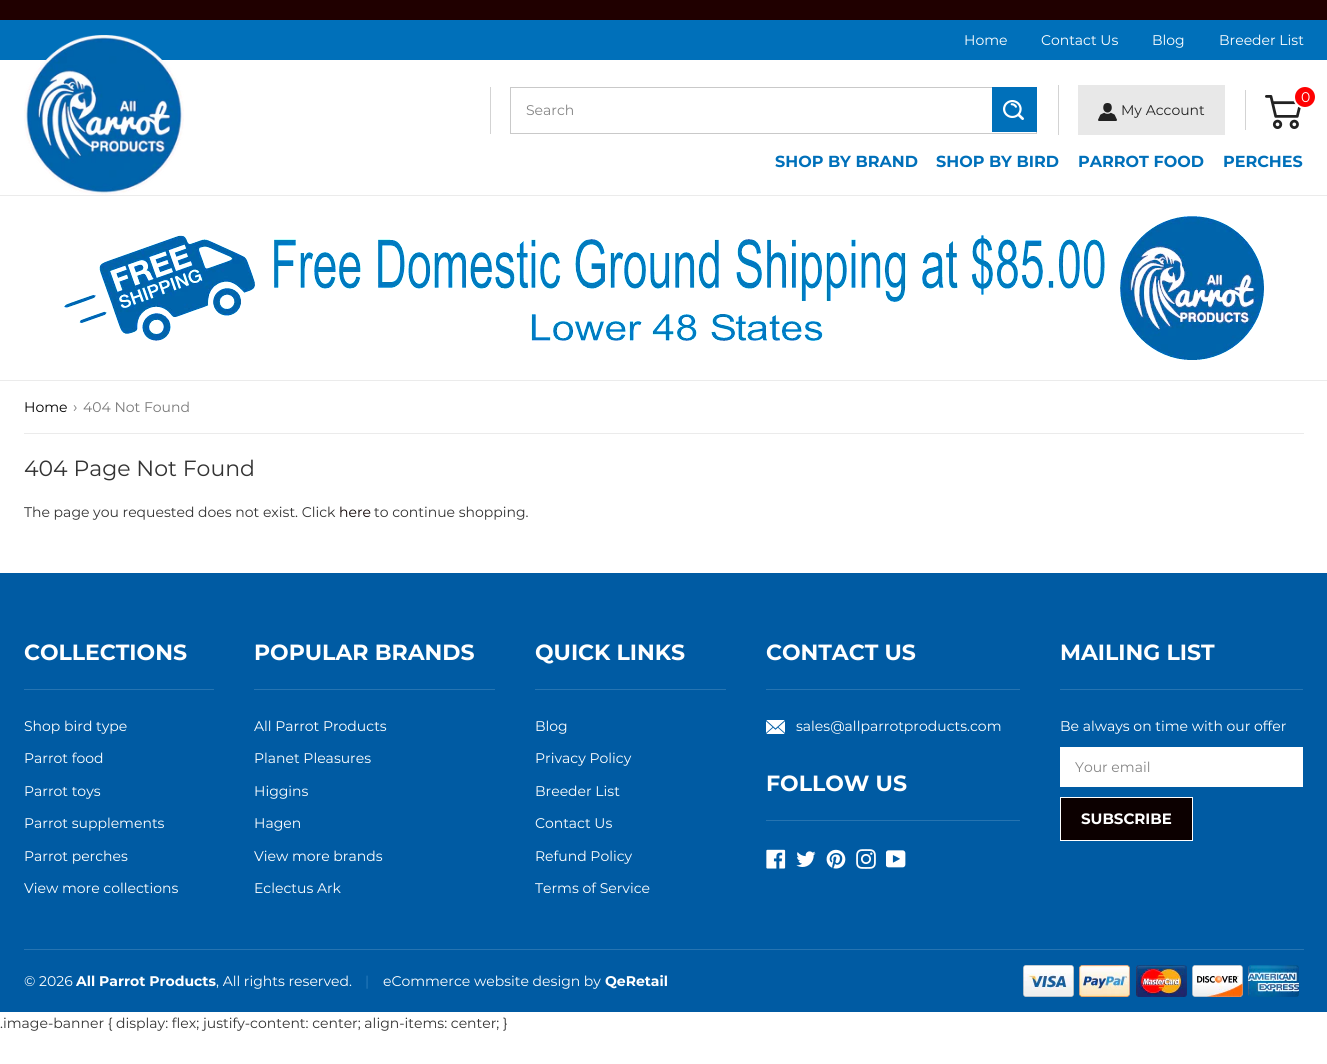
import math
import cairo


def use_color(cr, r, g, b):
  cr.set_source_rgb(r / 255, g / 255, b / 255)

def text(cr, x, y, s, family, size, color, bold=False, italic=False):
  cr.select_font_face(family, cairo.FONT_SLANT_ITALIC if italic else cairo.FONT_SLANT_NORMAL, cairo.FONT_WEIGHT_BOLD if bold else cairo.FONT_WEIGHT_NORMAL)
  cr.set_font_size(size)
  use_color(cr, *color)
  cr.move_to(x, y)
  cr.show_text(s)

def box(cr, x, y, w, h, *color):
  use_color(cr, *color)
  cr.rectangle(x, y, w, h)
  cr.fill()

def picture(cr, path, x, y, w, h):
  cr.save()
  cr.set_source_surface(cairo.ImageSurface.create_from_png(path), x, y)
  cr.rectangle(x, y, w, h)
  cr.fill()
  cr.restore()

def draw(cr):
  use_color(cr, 255, 255, 255)
  cr.paint()
  box(cr, 0, 0, 1327, 20, 32, 0, 0)
  box(cr, 0, 195, 1327, 1, 235, 235, 235)
  box(cr, 0, 20, 1327, 40, 0, 112, 186)
  picture(cr, "img_01.png", 24, 35, 160, 160)
  box(cr, 1245, 90, 1, 40, 211, 211, 211)
  picture(cr, "img_02.png", 1265, 95, 36, 34)
  use_color(cr, 254, 1, 2)
  cr.arc(1305, 97, 11, 0, 2 * math.pi)
  cr.fill_preserve()
  use_color(cr, 255, 255, 255)
  cr.stroke()
  box(cr, 490, 87, 1, 47, 211, 211, 211)
  cr.rectangle(510.5, 87.5, 526, 46)
  use_color(cr, 201, 201, 201)
  cr.set_line_width(1)
  cr.stroke()
  picture(cr, "img_03.png", 992, 87, 45, 45)
  box(cr, 1058, 85, 1, 50, 211, 211, 211)
  box(cr, 1078, 85, 147, 50, 232, 232, 232)
  picture(cr, "img_04.png", 1098, 103, 19, 18)
  box(cr, 0, 380, 1327, 1, 235, 235, 235)
  picture(cr, "img_05.png", 64, 216, 1200, 144)
  box(cr, 24, 433, 1280, 1, 235, 235, 235)
  box(cr, 0, 573, 1327, 439, 0, 91, 163)
  box(cr, 24, 689, 190, 1, 38, 116, 177)
  box(cr, 254, 689, 241, 1, 38, 116, 177)
  box(cr, 535, 689, 191, 1, 38, 116, 177)
  box(cr, 766, 689, 254, 1, 38, 116, 177)
  picture(cr, "img_06.png", 766, 720, 19, 14)
  box(cr, 766, 820, 254, 1, 38, 116, 177)
  picture(cr, "img_07.png", 766, 849, 20, 20)
  picture(cr, "img_08.png", 796, 851, 20, 16)
  picture(cr, "img_09.png", 826, 849, 20, 20)
  picture(cr, "img_10.png", 856, 849, 20, 20)
  picture(cr, "img_11.png", 886, 850, 20, 18)
  box(cr, 1060, 689, 243, 1, 38, 116, 177)
  box(cr, 1060, 747, 243, 40, 255, 255, 255)
  use_color(cr, 12, 0, 0)
  cr.rectangle(1060.5, 797.5, 132, 43)
  cr.fill_preserve()
  use_color(cr, 255, 255, 255)
  cr.stroke()
  box(cr, 24, 949, 1280, 1, 38, 116, 177)
  picture(cr, "img_12.png", 1023, 965, 276, 32)
  text(cr, 964, 45, "Home", "Montserrat", 14, (255, 255, 255))
  text(cr, 1041, 45, "Contact Us", "Montserrat", 14, (255, 255, 255))
  text(cr, 1152, 45, "Blog", "Montserrat", 14, (255, 255, 255))
  text(cr, 1219, 45, "Breeder List", "Montserrat", 14, (255, 255, 255))
  text(cr, 1301, 102, "0", "Montserrat", 14, (255, 255, 255))
  text(cr, 526, 115, "Search", "Montserrat", 14, (133, 133, 133))
  text(cr, 1121, 115, "My Account", "Montserrat", 14, (34, 34, 34))
  text(cr, 775, 167, "SHOP BY BRAND", "Montserrat", 16, (0, 112, 186), bold=True)
  text(cr, 936, 167, "SHOP BY BIRD", "Montserrat", 16, (0, 112, 186), bold=True)
  text(cr, 1078, 167, "PARROT FOOD", "Montserrat", 16, (0, 112, 186), bold=True)
  text(cr, 1223, 167, "PERCHES", "Montserrat", 16, (0, 112, 186), bold=True)
  text(cr, 24, 412, "Home", "Montserrat", 14, (0, 0, 0))
  text(cr, 73, 412, "›", "Montserrat", 15, (121, 121, 121))
  text(cr, 83, 412, "404 Not Found", "Montserrat", 14, (121, 121, 121))
  text(cr, 24, 476, "404 Page Not Found", "Montserrat", 22, (51, 51, 51))
  text(cr, 24, 517, "The page you requested does not exist. Click", "Montserrat", 14, (51, 51, 51))
  text(cr, 339, 517, "here", "Montserrat", 14, (12, 0, 0))
  text(cr, 374, 517, "to continue shopping.", "Montserrat", 14, (51, 51, 51))
  text(cr, 24, 660, "COLLECTIONS", "Montserrat", 22, (255, 255, 255), bold=True)
  text(cr, 24, 731, "Shop bird type", "Montserrat", 14, (255, 255, 255))
  text(cr, 24, 763, "Parrot food", "Montserrat", 14, (255, 255, 255))
  text(cr, 24, 796, "Parrot toys", "Montserrat", 14, (255, 255, 255))
  text(cr, 24, 828, "Parrot supplements", "Montserrat", 14, (255, 255, 255))
  text(cr, 24, 861, "Parrot perches", "Montserrat", 14, (255, 255, 255))
  text(cr, 24, 893, "View more collections", "Montserrat", 14, (255, 255, 255))
  text(cr, 254, 660, "POPULAR BRANDS", "Montserrat", 22, (255, 255, 255), bold=True)
  text(cr, 254, 731, "All Parrot Products", "Montserrat", 14, (255, 255, 255))
  text(cr, 254, 763, "Planet Pleasures", "Montserrat", 14, (255, 255, 255))
  text(cr, 254, 796, "Higgins", "Montserrat", 14, (255, 255, 255))
  text(cr, 254, 828, "Hagen", "Montserrat", 14, (255, 255, 255))
  text(cr, 254, 861, "View more brands", "Montserrat", 14, (255, 255, 255))
  text(cr, 254, 893, "Eclectus Ark", "Montserrat", 14, (255, 255, 255))
  text(cr, 535, 660, "QUICK LINKS", "Montserrat", 22, (255, 255, 255), bold=True)
  text(cr, 535, 731, "Blog", "Montserrat", 14, (255, 255, 255))
  text(cr, 535, 763, "Privacy Policy", "Montserrat", 14, (255, 255, 255))
  text(cr, 535, 796, "Breeder List", "Montserrat", 14, (255, 255, 255))
  text(cr, 535, 828, "Contact Us", "Montserrat", 14, (255, 255, 255))
  text(cr, 535, 861, "Refund Policy", "Montserrat", 14, (255, 255, 255))
  text(cr, 535, 893, "Terms of Service", "Montserrat", 14, (255, 255, 255))
  text(cr, 766, 660, "CONTACT US", "Montserrat", 22, (255, 255, 255), bold=True)
  text(cr, 796, 731, "sales@allparrotproducts.com", "Montserrat", 14, (255, 255, 255))
  text(cr, 766, 791, "FOLLOW US", "Montserrat", 22, (255, 255, 255), bold=True)
  text(cr, 1060, 660, "MAILING LIST", "Montserrat", 22, (255, 255, 255), bold=True)
  text(cr, 1060, 731, "Be always on time with our offer", "Montserrat", 14, (255, 255, 255))
  text(cr, 1075, 772, "Your email", "Montserrat", 14, (133, 133, 133))
  text(cr, 1081, 824, "SUBSCRIBE", "Montserrat", 15, (255, 255, 255), bold=True)
  text(cr, 24, 986, "© 2026", "Montserrat", 14, (255, 255, 255))
  text(cr, 76, 986, "All Parrot Products", "Montserrat", 14, (255, 255, 255), bold=True)
  text(cr, 216, 986, ", All rights reserved.", "Montserrat", 14, (255, 255, 255))
  text(cr, 365, 986, "|", "Montserrat", 14, (44, 125, 188))
  text(cr, 383, 986, "eCommerce website design by", "Montserrat", 14, (255, 255, 255))
  text(cr, 605, 986, "QeRetail", "Montserrat", 14, (255, 255, 255), bold=True)
  text(cr, 0, 1028, ".image-banner { display: flex; justify-content: center; align-items: center; }", "Montserrat", 14, (51, 51, 51))


surface = cairo.ImageSurface(cairo.FORMAT_RGB24, 1327, 1064)
cr = cairo.Context(surface)
options = cairo.FontOptions()
options.set_hint_metrics(cairo.HINT_METRICS_OFF)
options.set_hint_style(cairo.HINT_STYLE_NONE)
cr.set_font_options(options)
cr.set_miter_limit(4)
draw(cr)
surface.write_to_png("out.png")
